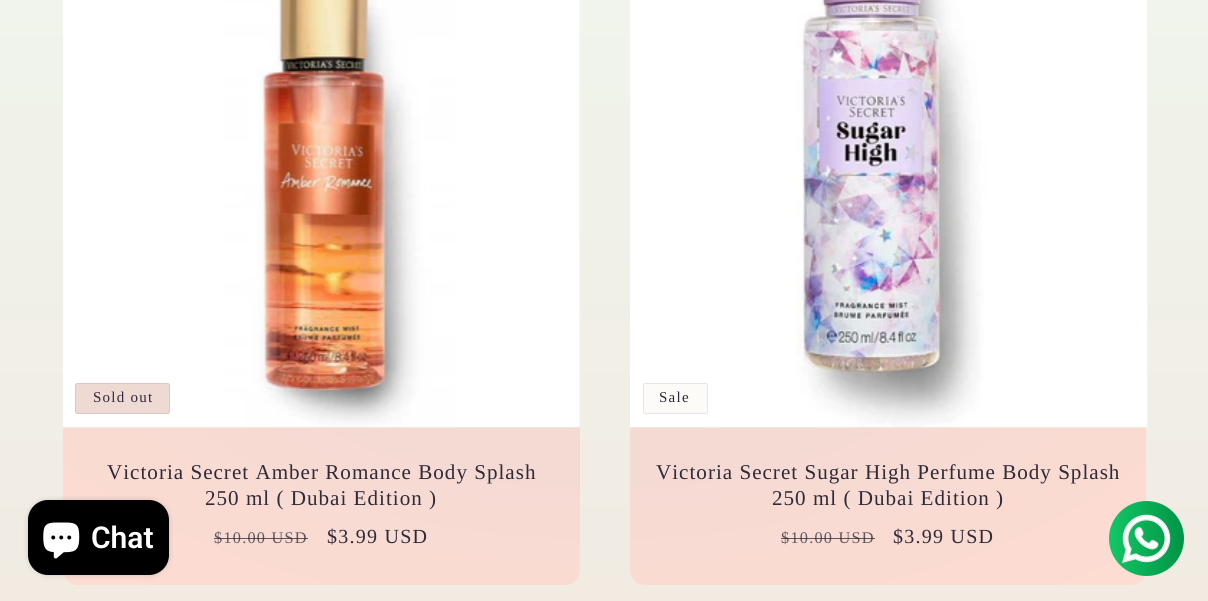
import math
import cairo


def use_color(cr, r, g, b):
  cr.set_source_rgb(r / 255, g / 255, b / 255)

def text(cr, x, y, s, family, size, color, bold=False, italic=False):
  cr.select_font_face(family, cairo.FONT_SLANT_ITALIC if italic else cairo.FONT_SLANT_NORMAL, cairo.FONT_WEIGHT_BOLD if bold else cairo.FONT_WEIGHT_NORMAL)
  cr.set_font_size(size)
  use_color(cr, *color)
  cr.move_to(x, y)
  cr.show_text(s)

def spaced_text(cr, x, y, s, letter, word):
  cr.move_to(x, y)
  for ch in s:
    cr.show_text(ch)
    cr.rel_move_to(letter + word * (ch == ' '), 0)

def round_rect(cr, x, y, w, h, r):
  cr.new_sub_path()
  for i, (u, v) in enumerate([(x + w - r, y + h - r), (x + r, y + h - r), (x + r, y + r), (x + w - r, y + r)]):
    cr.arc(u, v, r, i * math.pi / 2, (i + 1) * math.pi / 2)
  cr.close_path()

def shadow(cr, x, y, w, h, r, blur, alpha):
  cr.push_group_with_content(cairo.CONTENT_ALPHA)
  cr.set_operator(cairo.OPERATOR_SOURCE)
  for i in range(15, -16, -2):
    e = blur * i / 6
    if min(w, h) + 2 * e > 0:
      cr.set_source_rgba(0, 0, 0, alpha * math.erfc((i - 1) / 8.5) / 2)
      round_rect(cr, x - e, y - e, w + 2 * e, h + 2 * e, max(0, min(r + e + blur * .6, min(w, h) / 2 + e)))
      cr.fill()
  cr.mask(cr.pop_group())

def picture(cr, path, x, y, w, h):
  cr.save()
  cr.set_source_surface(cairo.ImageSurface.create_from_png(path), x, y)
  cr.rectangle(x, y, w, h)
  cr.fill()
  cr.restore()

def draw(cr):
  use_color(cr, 255, 255, 255)
  cr.paint()
  gradient = cairo.LinearGradient(604, 0, 604, 601)
  gradient.add_color_stop_rgba(0, 0.941, 0.957, 0.925, 1)
  gradient.add_color_stop_rgba(1, 0.945, 0.922, 0.886, 1)
  cr.set_source(gradient)
  cr.rectangle(0, 0, 1208, 601)
  cr.fill()
  gradient = cairo.RadialGradient(0, 0, 0, 0, 0, 1)
  gradient.set_matrix(cairo.Matrix(1 / 855, 0, 0, 1 / 425, -1 * 604 / 855, -1 * 301 / 425))
  gradient.add_color_stop_rgba(0, 0.933, 0.851, 0.827, 1)
  gradient.add_color_stop_rgba(1, 1, 0.863, 0.824, 1)
  cr.set_source(gradient)
  cr.new_path()
  cr.move_to(63, 0)
  cr.line_to(580, 0)
  cr.line_to(580, 570)
  cr.curve_to(580, 578.5, 573.5, 585, 565, 585)
  cr.line_to(78, 585)
  cr.curve_to(69.5, 585, 63, 578.5, 63, 570)
  cr.close_path()
  cr.fill()
  picture(cr, "img_01.png", 63, 0, 518, 428)
  use_color(cr, 238, 217, 211)
  round_rect(cr, 75, 383, 95, 31, 2.5)
  cr.fill()
  round_rect(cr, 75.5, 383.5, 94, 30, 2)
  cr.set_source_rgba(0.18, 0.165, 0.224, 0.1)
  cr.set_line_width(1)
  cr.stroke()
  gradient = cairo.RadialGradient(0, 0, 0, 0, 0, 1)
  gradient.set_matrix(cairo.Matrix(1 / 855, 0, 0, 1 / 425, -1 * 604 / 855, -1 * 301 / 425))
  gradient.add_color_stop_rgba(0, 0.933, 0.851, 0.827, 1)
  gradient.add_color_stop_rgba(1, 1, 0.863, 0.824, 1)
  cr.set_source(gradient)
  cr.new_path()
  cr.move_to(630, 0)
  cr.line_to(1146, 0)
  cr.line_to(1146, 570)
  cr.curve_to(1146, 578.5, 1139.5, 585, 1131, 585)
  cr.line_to(645, 585)
  cr.curve_to(636.5, 585, 630, 578.5, 630, 570)
  cr.close_path()
  cr.fill()
  picture(cr, "img_02.png", 630, 0, 518, 428)
  use_color(cr, 253, 251, 247)
  round_rect(cr, 643.5, 383.5, 64, 30, 2)
  cr.fill_preserve()
  use_color(cr, 232, 230, 228)
  cr.stroke()
  gradient = cairo.LinearGradient(1109, 539, 1184, 539)
  gradient.add_color_stop_rgba(0.01, 0.071, 0.776, 0.396, 1)
  gradient.add_color_stop_rgba(1, 0, 0.58, 0.275, 1)
  cr.set_source(gradient)
  cr.arc(1146.5, 538.5, 37.5, 0, 2 * math.pi)
  cr.fill()
  picture(cr, "img_03.png", 1122, 514, 49, 49)
  use_color(cr, 0, 0, 0)
  shadow(cr, 28, 500, 141, 75, 20, 3, 0.15)
  use_color(cr, 0, 0, 0)
  round_rect(cr, 28, 500, 141, 75, 20)
  cr.fill()
  picture(cr, "img_04.png", 43, 522, 37, 37)
  cr.select_font_face("Liberation Serif")
  cr.set_font_size(15)
  use_color(cr, 46, 42, 57)
  spaced_text(cr, 93, 402, "Sold out", 1.25, 0)
  cr.set_font_size(21.1)
  spaced_text(cr, 107, 479, "Victoria Secret Amber Romance Body Splash", 1, 0)
  spaced_text(cr, 205, 505, "250 ml ( Dubai Edition )", 1, 0)
  cr.set_font_size(16.25)
  use_color(cr, 97, 86, 95)
  spaced_text(cr, 214, 543, "$10.00 USD", 1.25, 0)
  cr.set_source_rgba(0.18, 0.165, 0.224, 0.75)
  cr.rectangle(214, 538, 94, 1)
  cr.fill()
  cr.set_font_size(20)
  use_color(cr, 46, 42, 57)
  spaced_text(cr, 327, 543, "$3.99 USD", 1.25, 0)
  cr.set_font_size(15)
  spaced_text(cr, 659, 402, "Sale", 1.25, 0)
  cr.set_font_size(21.1)
  spaced_text(cr, 656, 479, "Victoria Secret Sugar High Perfume Body Splash", 1, 0)
  spaced_text(cr, 772, 505, "250 ml ( Dubai Edition )", 1, 0)
  cr.set_font_size(16.25)
  use_color(cr, 97, 86, 95)
  spaced_text(cr, 781, 543, "$10.00 USD", 1.25, 0)
  cr.set_source_rgba(0.18, 0.165, 0.224, 0.75)
  cr.rectangle(781, 538, 94, 1)
  cr.fill()
  cr.set_font_size(20)
  use_color(cr, 46, 42, 57)
  spaced_text(cr, 893, 543, "$3.99 USD", 1.25, 0)
  text(cr, 91, 548, "Chat", "Roboto SemiBold", 30, (255, 255, 255))


surface = cairo.ImageSurface(cairo.FORMAT_RGB24, 1208, 601)
cr = cairo.Context(surface)
options = cairo.FontOptions()
options.set_hint_metrics(cairo.HINT_METRICS_OFF)
options.set_hint_style(cairo.HINT_STYLE_NONE)
cr.set_font_options(options)
cr.set_miter_limit(4)
draw(cr)
surface.write_to_png("out.png")
